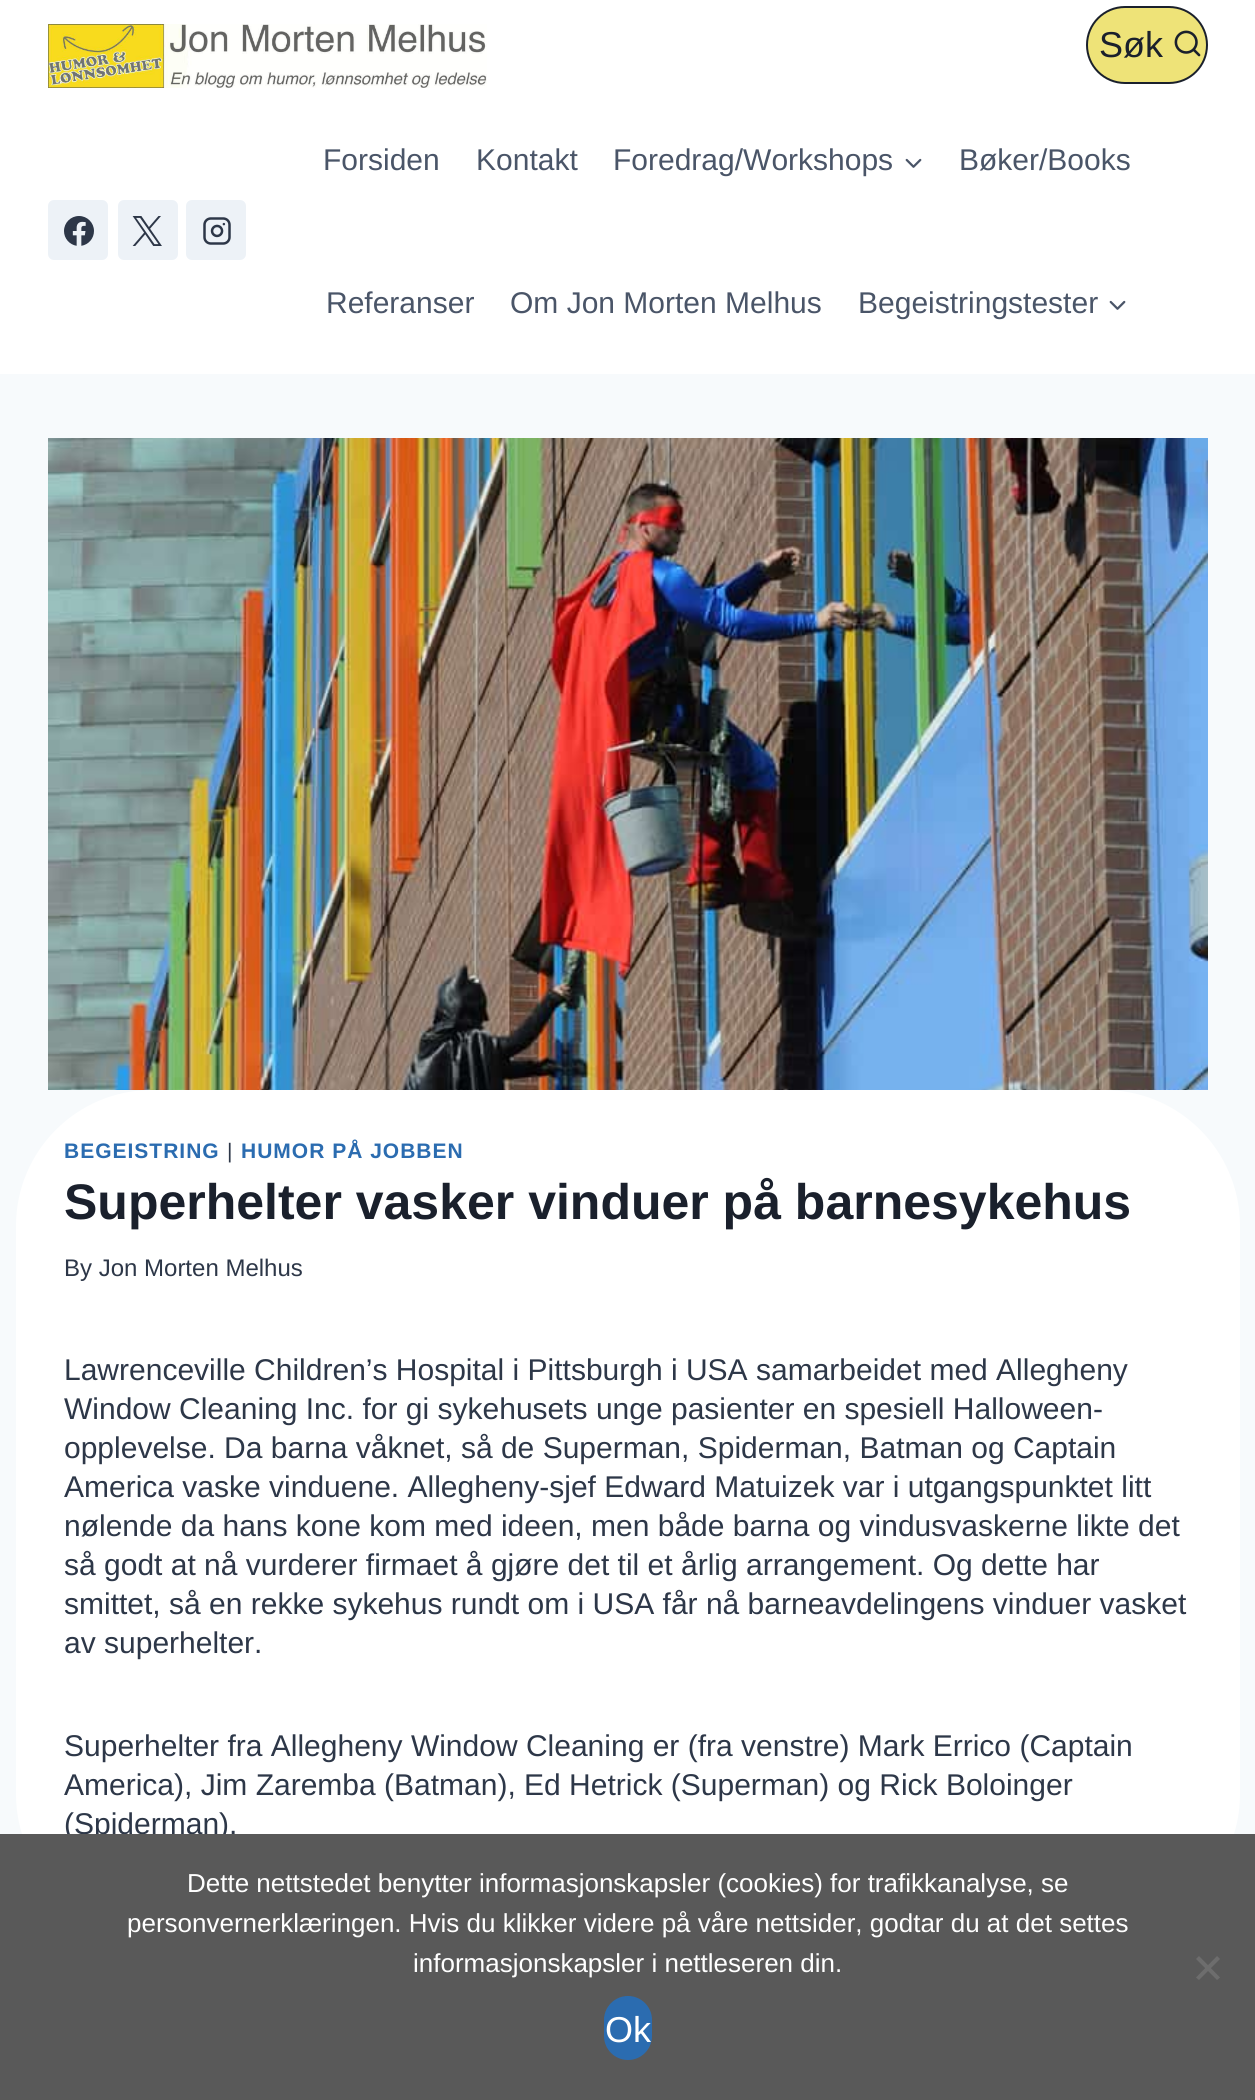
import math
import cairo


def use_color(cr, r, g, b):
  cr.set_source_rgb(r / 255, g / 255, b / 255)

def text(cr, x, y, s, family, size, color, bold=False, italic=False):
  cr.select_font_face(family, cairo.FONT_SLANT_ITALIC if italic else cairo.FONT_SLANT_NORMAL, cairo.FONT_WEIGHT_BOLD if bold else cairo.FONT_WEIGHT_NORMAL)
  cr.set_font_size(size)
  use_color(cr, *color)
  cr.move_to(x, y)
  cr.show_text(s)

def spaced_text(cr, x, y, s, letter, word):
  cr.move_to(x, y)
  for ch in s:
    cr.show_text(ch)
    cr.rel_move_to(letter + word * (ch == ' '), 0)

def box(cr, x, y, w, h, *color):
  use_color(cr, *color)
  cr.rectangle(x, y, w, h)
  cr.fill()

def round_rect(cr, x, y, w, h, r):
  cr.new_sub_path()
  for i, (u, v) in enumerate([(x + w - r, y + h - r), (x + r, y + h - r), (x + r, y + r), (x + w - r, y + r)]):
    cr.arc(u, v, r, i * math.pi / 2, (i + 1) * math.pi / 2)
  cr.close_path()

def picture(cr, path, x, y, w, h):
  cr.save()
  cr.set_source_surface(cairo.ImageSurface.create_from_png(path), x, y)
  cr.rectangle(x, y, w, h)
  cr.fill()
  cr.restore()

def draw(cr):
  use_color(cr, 247, 250, 252)
  cr.paint()
  box(cr, 0, 0, 1255, 374, 255, 255, 255)
  picture(cr, "img_01.png", 48, 24, 439, 64)
  use_color(cr, 238, 227, 120)
  round_rect(cr, 1087, 7, 120, 76, 38)
  cr.fill_preserve()
  use_color(cr, 26, 32, 44)
  cr.stroke()
  picture(cr, "img_02.png", 1174, 30, 27, 27)
  use_color(cr, 237, 242, 247)
  round_rect(cr, 48, 200, 60, 60, 6)
  cr.fill()
  picture(cr, "img_03.png", 64, 216, 30, 30)
  round_rect(cr, 118, 200, 60, 60, 6)
  cr.fill()
  picture(cr, "img_04.png", 132, 216, 30, 30)
  round_rect(cr, 186, 200, 60, 60, 6)
  cr.fill()
  picture(cr, "img_05.png", 203, 217, 28, 28)
  picture(cr, "img_06.png", 905, 158, 17, 10)
  picture(cr, "img_06.png", 1109, 300, 17, 10)
  picture(cr, "img_07.png", 48, 438, 1160, 652)
  use_color(cr, 255, 255, 255)
  round_rect(cr, 16, 1090, 1224, 840, 136)
  cr.fill()
  text(cr, 1099, 57, "Søk", "Liberation Sans", 36, (26, 32, 44))
  text(cr, 323, 170, "Forsiden", "Liberation Sans", 30, (74, 85, 104))
  text(cr, 476, 170, "Kontakt", "Liberation Sans", 30, (74, 85, 104))
  text(cr, 613, 170, "Foredrag/Workshops", "Liberation Sans", 30, (74, 85, 104))
  text(cr, 959, 170, "Bøker/Books", "Liberation Sans", 30, (74, 85, 104))
  text(cr, 326, 313, "Referanser", "Liberation Sans", 30, (74, 85, 104))
  text(cr, 510, 313, "Om Jon Morten Melhus", "Liberation Sans", 30, (74, 85, 104))
  text(cr, 858, 313, "Begeistringstester", "Liberation Sans", 30, (74, 85, 104))
  cr.select_font_face("Liberation Sans", cairo.FONT_SLANT_NORMAL, cairo.FONT_WEIGHT_BOLD)
  cr.set_font_size(21)
  use_color(cr, 43, 108, 176)
  spaced_text(cr, 64, 1158, "BEGEISTRING", 1, 0)
  cr.select_font_face("Liberation Sans")
  use_color(cr, 45, 55, 72)
  spaced_text(cr, 227, 1158, "|", 1, 0)
  cr.select_font_face("Liberation Sans", cairo.FONT_SLANT_NORMAL, cairo.FONT_WEIGHT_BOLD)
  use_color(cr, 43, 108, 176)
  spaced_text(cr, 241, 1158, "HUMOR PÅ JOBBEN", 1, 0)
  text(cr, 64, 1219, "Superhelter vasker vinduer på barnesykehus", "Liberation Sans", 50, (26, 32, 44), bold=True)
  text(cr, 64, 1276, "By Jon Morten Melhus", "Liberation Sans", 24, (45, 55, 72))
  text(cr, 64, 1380, "Lawrenceville Children’s Hospital i Pittsburgh i USA samarbeidet med Allegheny", "Liberation Sans", 30, (45, 55, 72))
  text(cr, 64, 1419, "Window Cleaning Inc. for gi sykehusets unge pasienter en spesiell Halloween-", "Liberation Sans", 30, (45, 55, 72))
  text(cr, 64, 1458, "opplevelse. Da barna våknet, så de Superman, Spiderman, Batman og Captain", "Liberation Sans", 30, (45, 55, 72))
  text(cr, 64, 1497, "America vaske vinduene. Allegheny-sjef Edward Matuizek var i utgangspunktet litt", "Liberation Sans", 30, (45, 55, 72))
  text(cr, 64, 1536, "nølende da hans kone kom med ideen, men både barna og vindusvaskerne likte det", "Liberation Sans", 30, (45, 55, 72))
  text(cr, 64, 1575, "så godt at nå vurderer firmaet å gjøre det til et årlig arrangement. Og dette har", "Liberation Sans", 30, (45, 55, 72))
  text(cr, 64, 1614, "smittet, så en rekke sykehus rundt om i USA får nå barneavdelingens vinduer vasket", "Liberation Sans", 30, (45, 55, 72))
  text(cr, 64, 1653, "av superhelter.", "Liberation Sans", 30, (45, 55, 72))
  text(cr, 64, 1756, "Superhelter fra Allegheny Window Cleaning er (fra venstre) Mark Errico (Captain", "Liberation Sans", 30, (45, 55, 72))
  text(cr, 64, 1795, "America), Jim Zaremba (Batman), Ed Hetrick (Superman) og Rick Boloinger", "Liberation Sans", 30, (45, 55, 72))
  text(cr, 64, 1834, "(Spiderman).", "Liberation Sans", 30, (45, 55, 72))
  box(cr, 0, 1834, 1255, 266, 89, 89, 89)
  text(cr, 187, 1892, "Dette nettstedet benytter informasjonskapsler (cookies) for trafikkanalyse, se", "Liberation Sans", 26, (255, 255, 255))
  text(cr, 127, 1932, "personvernerklæringen. Hvis du klikker videre på våre nettsider, godtar du at det settes", "Liberation Sans", 26, (255, 255, 255))
  text(cr, 413, 1972, "informasjonskapsler i nettleseren din.", "Liberation Sans", 26, (255, 255, 255))
  use_color(cr, 109, 109, 109)
  cr.new_path()
  cr.move_to(1217, 1956)
  cr.line_to(1220, 1959)
  cr.line_to(1199, 1980)
  cr.line_to(1196, 1977.5)
  cr.close_path()
  cr.fill()
  cr.new_path()
  cr.move_to(1196, 1959)
  cr.line_to(1199, 1956)
  cr.line_to(1220, 1977.5)
  cr.line_to(1217, 1980)
  cr.close_path()
  cr.fill()
  use_color(cr, 43, 108, 176)
  round_rect(cr, 604, 1996, 48, 64, 24)
  cr.fill()
  text(cr, 605, 2042, "Ok", "Liberation Sans", 36, (255, 255, 255))


surface = cairo.ImageSurface(cairo.FORMAT_RGB24, 1255, 2100)
cr = cairo.Context(surface)
options = cairo.FontOptions()
options.set_hint_metrics(cairo.HINT_METRICS_OFF)
options.set_hint_style(cairo.HINT_STYLE_NONE)
cr.set_font_options(options)
cr.set_miter_limit(4)
draw(cr)
surface.write_to_png("out.png")
